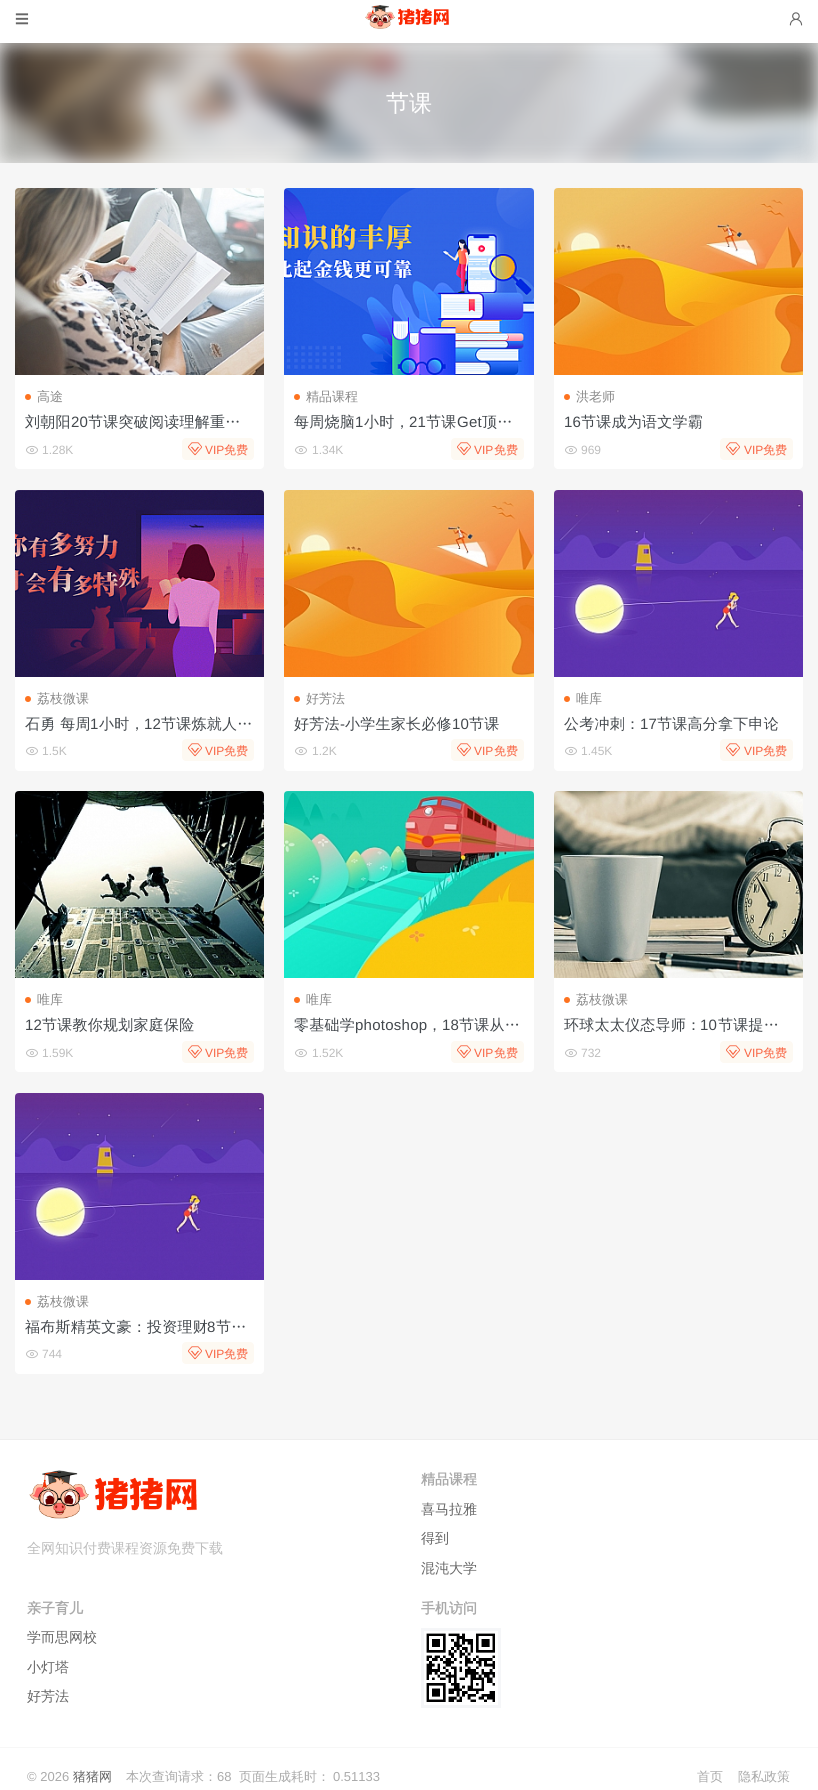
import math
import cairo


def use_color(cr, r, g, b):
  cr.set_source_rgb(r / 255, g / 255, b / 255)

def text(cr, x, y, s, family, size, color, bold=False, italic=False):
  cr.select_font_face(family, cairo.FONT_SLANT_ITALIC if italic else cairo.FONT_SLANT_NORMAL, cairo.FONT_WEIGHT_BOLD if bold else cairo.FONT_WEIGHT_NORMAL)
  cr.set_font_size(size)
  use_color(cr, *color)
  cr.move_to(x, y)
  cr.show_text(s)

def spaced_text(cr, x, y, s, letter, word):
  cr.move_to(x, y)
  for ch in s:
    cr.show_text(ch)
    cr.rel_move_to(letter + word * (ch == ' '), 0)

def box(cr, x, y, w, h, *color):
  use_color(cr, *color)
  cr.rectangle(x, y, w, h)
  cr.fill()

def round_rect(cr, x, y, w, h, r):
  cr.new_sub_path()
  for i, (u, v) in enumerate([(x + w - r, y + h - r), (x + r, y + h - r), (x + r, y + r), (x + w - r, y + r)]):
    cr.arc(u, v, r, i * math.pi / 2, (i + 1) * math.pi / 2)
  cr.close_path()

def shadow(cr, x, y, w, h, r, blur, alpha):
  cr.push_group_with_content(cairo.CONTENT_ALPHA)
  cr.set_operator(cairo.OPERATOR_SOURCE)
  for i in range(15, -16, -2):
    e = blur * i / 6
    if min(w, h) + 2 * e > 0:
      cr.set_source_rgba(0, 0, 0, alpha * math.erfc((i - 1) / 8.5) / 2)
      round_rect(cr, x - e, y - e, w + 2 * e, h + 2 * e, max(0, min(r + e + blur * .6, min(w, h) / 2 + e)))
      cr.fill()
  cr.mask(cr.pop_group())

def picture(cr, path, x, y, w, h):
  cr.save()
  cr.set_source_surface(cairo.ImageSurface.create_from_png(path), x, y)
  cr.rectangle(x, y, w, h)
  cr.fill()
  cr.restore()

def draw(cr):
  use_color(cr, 246, 246, 246)
  cr.paint()
  picture(cr, "img_04.png", 0, 43, 818, 120)
  use_color(cr, 0, 0, 0)
  shadow(cr, 0, -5, 818, 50, 0, 2.5, 0.07)
  box(cr, 0, 0, 818, 43, 255, 255, 255)
  picture(cr, "img_01.png", 15, 13, 14, 12)
  picture(cr, "img_02.png", 365, 5, 84, 24)
  picture(cr, "img_03.png", 789, 12, 14, 14)
  round_rect(cr, 15, 188, 249, 281, 4)
  cr.fill()
  picture(cr, "img_05.png", 15, 188, 249, 187)
  use_color(cr, 253, 114, 31)
  cr.arc(28, 397, 3, 0, 2 * math.pi)
  cr.fill()
  picture(cr, "img_06.png", 26, 445, 12, 10)
  use_color(cr, 253, 249, 242)
  round_rect(cr, 182, 438, 72, 22, 4)
  cr.fill()
  picture(cr, "img_07.png", 188, 442, 14, 14)
  use_color(cr, 255, 255, 255)
  round_rect(cr, 284, 188, 250, 281, 4)
  cr.fill()
  picture(cr, "img_08.png", 284, 188, 250, 187)
  use_color(cr, 253, 114, 31)
  cr.arc(297, 397, 3, 0, 2 * math.pi)
  cr.fill()
  picture(cr, "img_06.png", 295, 445, 12, 10)
  use_color(cr, 253, 249, 242)
  round_rect(cr, 451, 438, 73, 22, 4)
  cr.fill()
  picture(cr, "img_07.png", 457, 442, 14, 14)
  use_color(cr, 255, 255, 255)
  round_rect(cr, 554, 188, 249, 281, 4)
  cr.fill()
  picture(cr, "img_09.png", 554, 188, 249, 187)
  use_color(cr, 253, 114, 31)
  cr.arc(567, 397, 3, 0, 2 * math.pi)
  cr.fill()
  picture(cr, "img_06.png", 565, 445, 12, 10)
  use_color(cr, 253, 249, 242)
  round_rect(cr, 720, 438, 73, 22, 4)
  cr.fill()
  picture(cr, "img_07.png", 726, 442, 14, 14)
  use_color(cr, 255, 255, 255)
  round_rect(cr, 15, 490, 249, 281, 4)
  cr.fill()
  picture(cr, "img_10.png", 15, 490, 249, 187)
  use_color(cr, 253, 114, 31)
  cr.arc(28, 699, 3, 0, 2 * math.pi)
  cr.fill()
  picture(cr, "img_06.png", 26, 746, 12, 10)
  use_color(cr, 253, 249, 242)
  round_rect(cr, 182, 739, 72, 22, 4)
  cr.fill()
  picture(cr, "img_07.png", 188, 743, 14, 14)
  use_color(cr, 255, 255, 255)
  round_rect(cr, 284, 490, 250, 281, 4)
  cr.fill()
  picture(cr, "img_11.png", 284, 490, 250, 187)
  use_color(cr, 253, 114, 31)
  cr.arc(297, 699, 3, 0, 2 * math.pi)
  cr.fill()
  picture(cr, "img_06.png", 295, 746, 12, 10)
  use_color(cr, 253, 249, 242)
  round_rect(cr, 451, 739, 73, 22, 4)
  cr.fill()
  picture(cr, "img_07.png", 457, 743, 14, 14)
  use_color(cr, 255, 255, 255)
  round_rect(cr, 554, 490, 249, 281, 4)
  cr.fill()
  picture(cr, "img_12.png", 554, 490, 249, 187)
  use_color(cr, 253, 114, 31)
  cr.arc(567, 699, 3, 0, 2 * math.pi)
  cr.fill()
  picture(cr, "img_06.png", 565, 746, 12, 10)
  use_color(cr, 253, 249, 242)
  round_rect(cr, 720, 739, 73, 22, 4)
  cr.fill()
  picture(cr, "img_07.png", 726, 743, 14, 14)
  use_color(cr, 255, 255, 255)
  round_rect(cr, 15, 791, 249, 281, 4)
  cr.fill()
  picture(cr, "img_13.png", 15, 791, 249, 187)
  use_color(cr, 253, 114, 31)
  cr.arc(28, 1000, 3, 0, 2 * math.pi)
  cr.fill()
  picture(cr, "img_06.png", 26, 1048, 12, 10)
  use_color(cr, 253, 249, 242)
  round_rect(cr, 182, 1041, 72, 22, 4)
  cr.fill()
  picture(cr, "img_07.png", 188, 1045, 14, 14)
  use_color(cr, 255, 255, 255)
  round_rect(cr, 284, 791, 250, 281, 4)
  cr.fill()
  picture(cr, "img_14.png", 284, 791, 250, 187)
  use_color(cr, 253, 114, 31)
  cr.arc(297, 1000, 3, 0, 2 * math.pi)
  cr.fill()
  picture(cr, "img_06.png", 295, 1048, 12, 10)
  use_color(cr, 253, 249, 242)
  round_rect(cr, 451, 1041, 73, 22, 4)
  cr.fill()
  picture(cr, "img_07.png", 457, 1045, 14, 14)
  use_color(cr, 255, 255, 255)
  round_rect(cr, 554, 791, 249, 281, 4)
  cr.fill()
  picture(cr, "img_15.png", 554, 791, 249, 187)
  use_color(cr, 253, 114, 31)
  cr.arc(567, 1000, 3, 0, 2 * math.pi)
  cr.fill()
  picture(cr, "img_06.png", 565, 1048, 12, 10)
  use_color(cr, 253, 249, 242)
  round_rect(cr, 720, 1041, 73, 22, 4)
  cr.fill()
  picture(cr, "img_07.png", 726, 1045, 14, 14)
  use_color(cr, 255, 255, 255)
  round_rect(cr, 15, 1093, 249, 281, 4)
  cr.fill()
  picture(cr, "img_12.png", 15, 1093, 249, 187)
  use_color(cr, 253, 114, 31)
  cr.arc(28, 1302, 3, 0, 2 * math.pi)
  cr.fill()
  picture(cr, "img_06.png", 26, 1349, 12, 10)
  use_color(cr, 253, 249, 242)
  round_rect(cr, 182, 1342, 72, 22, 4)
  cr.fill()
  picture(cr, "img_07.png", 188, 1346, 14, 14)
  box(cr, 0, 1440, 818, 350, 255, 255, 255)
  box(cr, 0, 1439, 818, 1, 238, 238, 238)
  picture(cr, "img_16.png", 29, 1470, 168, 49)
  cr.rectangle(422.5, 1629.5, 77, 77)
  use_color(cr, 245, 246, 248)
  cr.set_line_width(3)
  cr.stroke()
  picture(cr, "img_17.png", 426, 1633, 69, 69)
  box(cr, 0, 1747, 818, 1, 247, 247, 247)
  text(cr, 386, 111, "节课", "WenQuanYi Zen Hei Medium", 23, (255, 255, 255))
  text(cr, 37, 401, "高途", "WenQuanYi Zen Hei Medium", 13, (136, 136, 136))
  cr.set_font_size(15)
  use_color(cr, 67, 72, 77)
  spaced_text(cr, 25, 427, "刘朝阳", 0.25, 0)
  cr.select_font_face("Liberation Sans")
  spaced_text(cr, 71, 427, "20", 0.25, 0)
  cr.select_font_face("WenQuanYi Zen Hei Medium")
  spaced_text(cr, 88, 427, "节课突破阅读理解重…", 0.25, 0)
  text(cr, 42, 454, "1.28K", "Liberation Sans", 12, (189, 189, 189))
  text(cr, 205, 454, "VIP", "Liberation Sans", 12, (248, 100, 66))
  text(cr, 224, 454, "免费", "WenQuanYi Zen Hei Medium", 12, (248, 100, 66))
  text(cr, 306, 401, "精品课程", "WenQuanYi Zen Hei Medium", 13, (136, 136, 136))
  cr.set_font_size(15)
  use_color(cr, 67, 72, 77)
  spaced_text(cr, 294, 427, "每周烧脑", 0.25, 0)
  cr.select_font_face("Liberation Sans")
  spaced_text(cr, 355, 427, "1", 0.25, 0)
  cr.select_font_face("WenQuanYi Zen Hei Medium")
  spaced_text(cr, 364, 427, "小时，", 0.25, 0)
  cr.select_font_face("Liberation Sans")
  spaced_text(cr, 409, 427, "21", 0.25, 0)
  cr.select_font_face("WenQuanYi Zen Hei Medium")
  spaced_text(cr, 426, 427, "节课", 0.25, 0)
  cr.select_font_face("Liberation Sans")
  spaced_text(cr, 457, 427, "Get", 0.25, 0)
  cr.select_font_face("WenQuanYi Zen Hei Medium")
  spaced_text(cr, 482, 427, "顶…", 0.25, 0)
  text(cr, 312, 454, "1.34K", "Liberation Sans", 12, (189, 189, 189))
  text(cr, 474, 454, "VIP", "Liberation Sans", 12, (248, 100, 66))
  text(cr, 494, 454, "免费", "WenQuanYi Zen Hei Medium", 12, (248, 100, 66))
  text(cr, 576, 401, "洪老师", "WenQuanYi Zen Hei Medium", 13, (136, 136, 136))
  cr.select_font_face("Liberation Sans")
  cr.set_font_size(15)
  use_color(cr, 67, 72, 77)
  spaced_text(cr, 564, 427, "16", 0.25, 0)
  cr.select_font_face("WenQuanYi Zen Hei Medium")
  spaced_text(cr, 581, 427, "节课成为语文学霸", 0.25, 0)
  text(cr, 581, 454, "969", "Liberation Sans", 12, (189, 189, 189))
  text(cr, 744, 454, "VIP", "Liberation Sans", 12, (248, 100, 66))
  text(cr, 763, 454, "免费", "WenQuanYi Zen Hei Medium", 12, (248, 100, 66))
  text(cr, 37, 703, "荔枝微课", "WenQuanYi Zen Hei Medium", 13, (136, 136, 136))
  cr.set_font_size(15)
  use_color(cr, 67, 72, 77)
  spaced_text(cr, 25, 729, "石勇 每周", 0.25, 0)
  cr.select_font_face("Liberation Sans")
  spaced_text(cr, 90, 729, "1", 0.25, 0)
  cr.select_font_face("WenQuanYi Zen Hei Medium")
  spaced_text(cr, 99, 729, "小时，", 0.25, 0)
  cr.select_font_face("Liberation Sans")
  spaced_text(cr, 144, 729, "12", 0.25, 0)
  cr.select_font_face("WenQuanYi Zen Hei Medium")
  spaced_text(cr, 161, 729, "节课炼就人…", 0.25, 0)
  text(cr, 42, 755, "1.5K", "Liberation Sans", 12, (189, 189, 189))
  text(cr, 205, 755, "VIP", "Liberation Sans", 12, (248, 100, 66))
  text(cr, 224, 755, "免费", "WenQuanYi Zen Hei Medium", 12, (248, 100, 66))
  text(cr, 306, 703, "好芳法", "WenQuanYi Zen Hei Medium", 13, (136, 136, 136))
  cr.set_font_size(15)
  use_color(cr, 67, 72, 77)
  spaced_text(cr, 294, 729, "好芳法", 0.25, 0)
  cr.select_font_face("Liberation Sans")
  spaced_text(cr, 340, 729, "-", 0.25, 0)
  cr.select_font_face("WenQuanYi Zen Hei Medium")
  spaced_text(cr, 345, 729, "小学生家长必修", 0.25, 0)
  cr.select_font_face("Liberation Sans")
  spaced_text(cr, 452, 729, "10", 0.25, 0)
  cr.select_font_face("WenQuanYi Zen Hei Medium")
  spaced_text(cr, 469, 729, "节课", 0.25, 0)
  text(cr, 312, 755, "1.2K", "Liberation Sans", 12, (189, 189, 189))
  text(cr, 474, 755, "VIP", "Liberation Sans", 12, (248, 100, 66))
  text(cr, 494, 755, "免费", "WenQuanYi Zen Hei Medium", 12, (248, 100, 66))
  text(cr, 576, 703, "唯库", "WenQuanYi Zen Hei Medium", 13, (136, 136, 136))
  cr.set_font_size(15)
  use_color(cr, 67, 72, 77)
  spaced_text(cr, 564, 729, "公考冲刺：", 0.25, 0)
  cr.select_font_face("Liberation Sans")
  spaced_text(cr, 640, 729, "17", 0.25, 0)
  cr.select_font_face("WenQuanYi Zen Hei Medium")
  spaced_text(cr, 657, 729, "节课高分拿下申论", 0.25, 0)
  text(cr, 581, 755, "1.45K", "Liberation Sans", 12, (189, 189, 189))
  text(cr, 744, 755, "VIP", "Liberation Sans", 12, (248, 100, 66))
  text(cr, 763, 755, "免费", "WenQuanYi Zen Hei Medium", 12, (248, 100, 66))
  text(cr, 37, 1004, "唯库", "WenQuanYi Zen Hei Medium", 13, (136, 136, 136))
  cr.select_font_face("Liberation Sans")
  cr.set_font_size(15)
  use_color(cr, 67, 72, 77)
  spaced_text(cr, 25, 1030, "12", 0.25, 0)
  cr.select_font_face("WenQuanYi Zen Hei Medium")
  spaced_text(cr, 42, 1030, "节课教你规划家庭保险", 0.25, 0)
  text(cr, 42, 1057, "1.59K", "Liberation Sans", 12, (189, 189, 189))
  text(cr, 205, 1057, "VIP", "Liberation Sans", 12, (248, 100, 66))
  text(cr, 224, 1057, "免费", "WenQuanYi Zen Hei Medium", 12, (248, 100, 66))
  text(cr, 306, 1004, "唯库", "WenQuanYi Zen Hei Medium", 13, (136, 136, 136))
  cr.set_font_size(15)
  use_color(cr, 67, 72, 77)
  spaced_text(cr, 294, 1030, "零基础学", 0.25, 0)
  cr.select_font_face("Liberation Sans")
  spaced_text(cr, 355, 1030, "photoshop", 0.25, 0)
  cr.select_font_face("WenQuanYi Zen Hei Medium")
  spaced_text(cr, 427, 1030, "，", 0.25, 0)
  cr.select_font_face("Liberation Sans")
  spaced_text(cr, 442, 1030, "18", 0.25, 0)
  cr.select_font_face("WenQuanYi Zen Hei Medium")
  spaced_text(cr, 459, 1030, "节课从…", 0.25, 0)
  text(cr, 312, 1057, "1.52K", "Liberation Sans", 12, (189, 189, 189))
  text(cr, 474, 1057, "VIP", "Liberation Sans", 12, (248, 100, 66))
  text(cr, 494, 1057, "免费", "WenQuanYi Zen Hei Medium", 12, (248, 100, 66))
  text(cr, 576, 1004, "荔枝微课", "WenQuanYi Zen Hei Medium", 13, (136, 136, 136))
  cr.set_font_size(15)
  use_color(cr, 67, 72, 77)
  spaced_text(cr, 564, 1030, "环球太太仪态导师：", 0.25, 0)
  cr.select_font_face("Liberation Sans")
  spaced_text(cr, 700, 1030, "10", 0.25, 0)
  cr.select_font_face("WenQuanYi Zen Hei Medium")
  spaced_text(cr, 718, 1030, "节课提…", 0.25, 0)
  text(cr, 581, 1057, "732", "Liberation Sans", 12, (189, 189, 189))
  text(cr, 744, 1057, "VIP", "Liberation Sans", 12, (248, 100, 66))
  text(cr, 763, 1057, "免费", "WenQuanYi Zen Hei Medium", 12, (248, 100, 66))
  text(cr, 37, 1306, "荔枝微课", "WenQuanYi Zen Hei Medium", 13, (136, 136, 136))
  cr.set_font_size(15)
  use_color(cr, 67, 72, 77)
  spaced_text(cr, 25, 1332, "福布斯精英文豪：投资理财", 0.25, 0)
  cr.select_font_face("Liberation Sans")
  spaced_text(cr, 207, 1332, "8", 0.25, 0)
  cr.select_font_face("WenQuanYi Zen Hei Medium")
  spaced_text(cr, 216, 1332, "节…", 0.25, 0)
  text(cr, 42, 1358, "744", "Liberation Sans", 12, (189, 189, 189))
  text(cr, 205, 1358, "VIP", "Liberation Sans", 12, (248, 100, 66))
  text(cr, 224, 1358, "免费", "WenQuanYi Zen Hei Medium", 12, (248, 100, 66))
  text(cr, 27, 1553, "全网知识付费课程资源免费下载", "WenQuanYi Zen Hei Medium", 14, (189, 189, 189))
  text(cr, 421, 1484, "精品课程", "WenQuanYi Zen Hei", 14, (170, 170, 170), bold=True)
  text(cr, 421, 1514, "喜马拉雅", "WenQuanYi Zen Hei Medium", 14, (102, 102, 102))
  text(cr, 421, 1543, "得到", "WenQuanYi Zen Hei Medium", 14, (102, 102, 102))
  text(cr, 421, 1573, "混沌大学", "WenQuanYi Zen Hei Medium", 14, (102, 102, 102))
  text(cr, 27, 1613, "亲子育儿", "WenQuanYi Zen Hei", 14, (170, 170, 170), bold=True)
  text(cr, 27, 1642, "学而思网校", "WenQuanYi Zen Hei Medium", 14, (102, 102, 102))
  text(cr, 27, 1672, "小灯塔", "WenQuanYi Zen Hei Medium", 14, (102, 102, 102))
  text(cr, 27, 1701, "好芳法", "WenQuanYi Zen Hei Medium", 14, (102, 102, 102))
  text(cr, 421, 1613, "手机访问", "WenQuanYi Zen Hei", 14, (170, 170, 170), bold=True)
  text(cr, 27, 1781, "© 2026", "Liberation Sans", 13, (170, 170, 170))
  text(cr, 73, 1781, "猪猪网", "WenQuanYi Zen Hei Medium", 13, (102, 102, 102))
  text(cr, 126, 1781, "本次查询请求：", "WenQuanYi Zen Hei Medium", 13, (170, 170, 170))
  text(cr, 217, 1781, "68", "Liberation Sans", 13, (170, 170, 170))
  text(cr, 239, 1781, "页面生成耗时：", "WenQuanYi Zen Hei Medium", 13, (170, 170, 170))
  text(cr, 333, 1781, "0.51133", "Liberation Sans", 13, (170, 170, 170))
  text(cr, 697, 1781, "首页", "WenQuanYi Zen Hei Medium", 13, (170, 170, 170))
  text(cr, 738, 1781, "隐私政策", "WenQuanYi Zen Hei Medium", 13, (170, 170, 170))


surface = cairo.ImageSurface(cairo.FORMAT_RGB24, 818, 1790)
cr = cairo.Context(surface)
options = cairo.FontOptions()
options.set_hint_metrics(cairo.HINT_METRICS_OFF)
options.set_hint_style(cairo.HINT_STYLE_NONE)
cr.set_font_options(options)
cr.set_miter_limit(4)
draw(cr)
surface.write_to_png("out.png")
